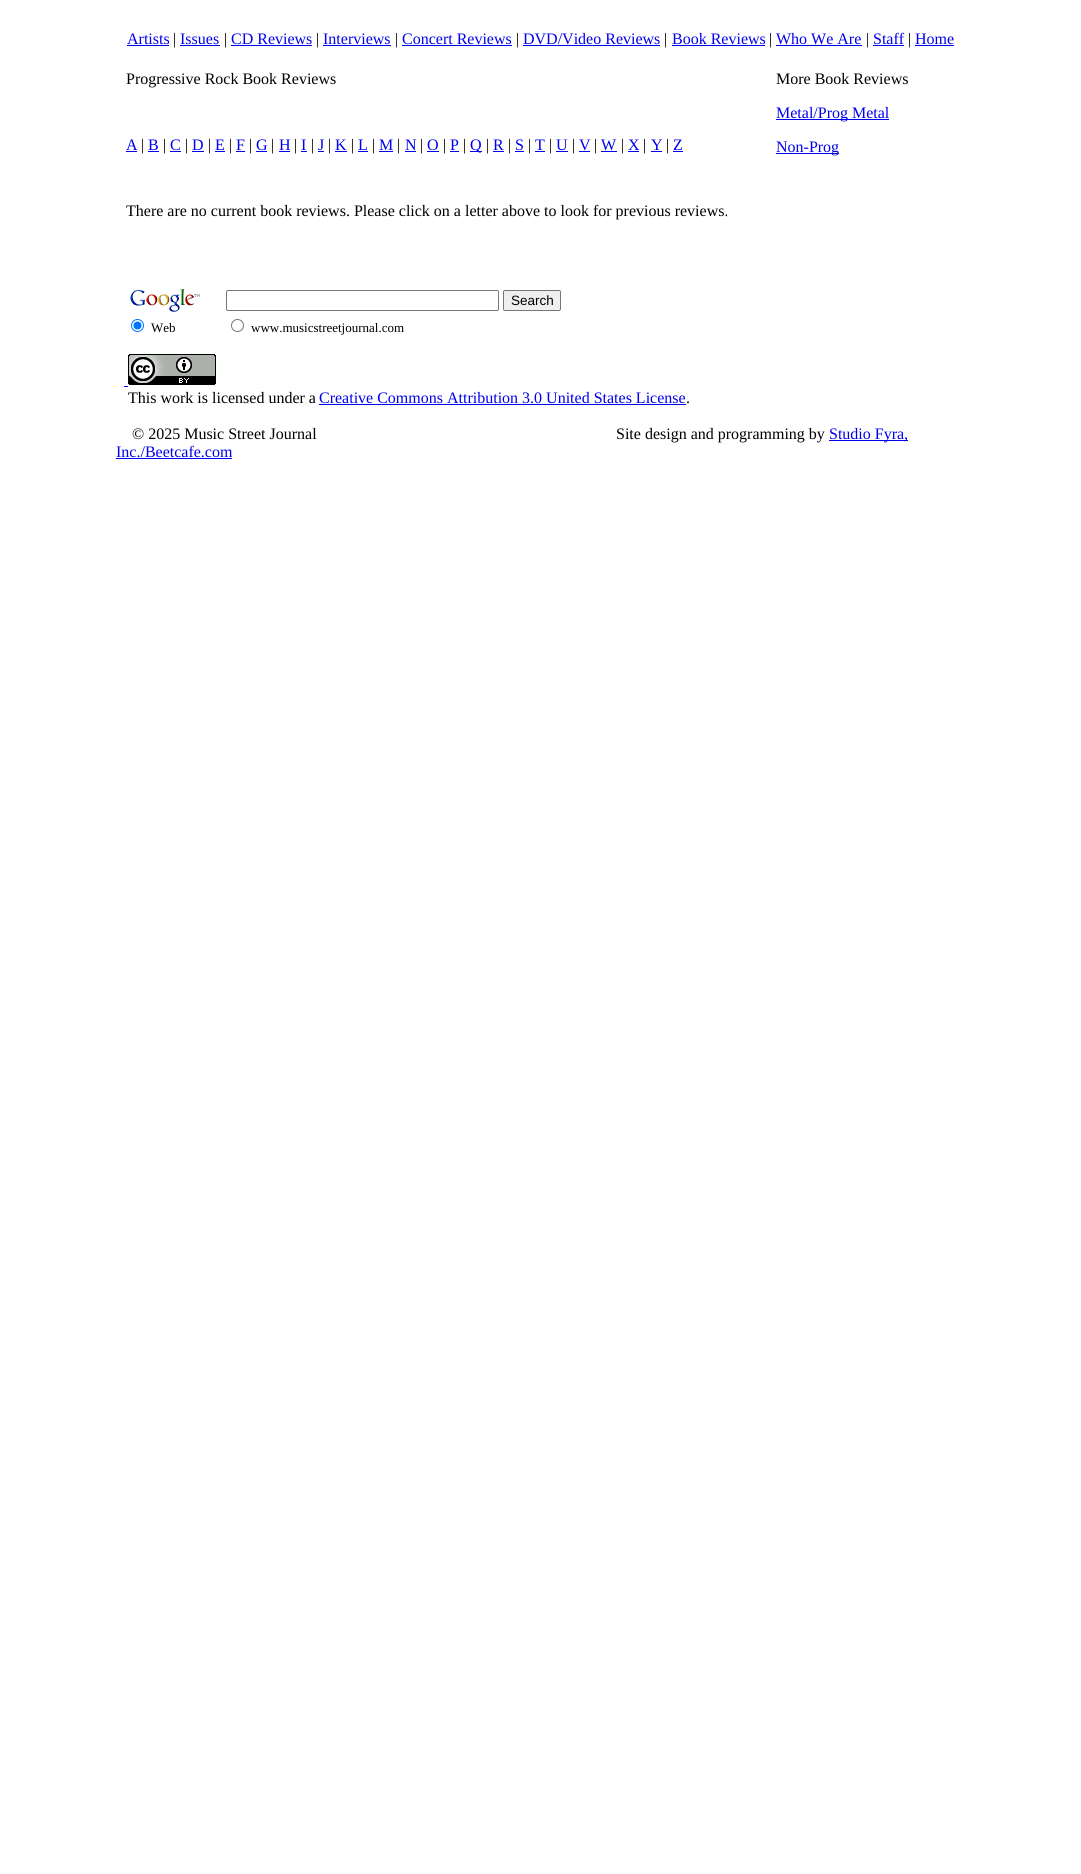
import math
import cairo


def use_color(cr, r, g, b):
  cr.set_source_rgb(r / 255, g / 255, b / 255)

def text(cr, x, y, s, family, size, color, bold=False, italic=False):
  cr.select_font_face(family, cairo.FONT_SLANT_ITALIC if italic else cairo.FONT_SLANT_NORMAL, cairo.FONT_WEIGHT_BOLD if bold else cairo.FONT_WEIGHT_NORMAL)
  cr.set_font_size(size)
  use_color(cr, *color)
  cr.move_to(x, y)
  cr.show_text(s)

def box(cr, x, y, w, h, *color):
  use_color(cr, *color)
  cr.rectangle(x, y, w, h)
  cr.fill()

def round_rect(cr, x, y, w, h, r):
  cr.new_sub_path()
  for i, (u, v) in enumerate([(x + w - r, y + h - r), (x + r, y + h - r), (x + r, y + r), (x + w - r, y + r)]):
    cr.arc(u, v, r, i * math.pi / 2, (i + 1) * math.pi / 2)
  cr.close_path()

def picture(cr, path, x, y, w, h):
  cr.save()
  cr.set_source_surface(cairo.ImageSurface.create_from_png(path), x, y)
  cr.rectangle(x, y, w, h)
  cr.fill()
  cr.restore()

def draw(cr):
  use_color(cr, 255, 255, 255)
  cr.paint()
  box(cr, 127, 45, 42, 1, 0, 0, 238)
  box(cr, 180, 45, 40, 1, 0, 0, 238)
  box(cr, 231, 45, 81, 1, 0, 0, 238)
  box(cr, 323, 45, 68, 1, 0, 0, 238)
  box(cr, 402, 45, 110, 1, 0, 0, 238)
  box(cr, 523, 45, 137, 1, 0, 0, 238)
  box(cr, 672, 45, 93, 1, 0, 0, 238)
  box(cr, 776, 45, 86, 1, 0, 0, 238)
  box(cr, 873, 45, 31, 1, 0, 0, 238)
  box(cr, 915, 45, 39, 1, 0, 0, 238)
  box(cr, 126, 151, 11, 1, 0, 0, 238)
  box(cr, 148, 151, 11, 1, 0, 0, 238)
  box(cr, 170, 151, 11, 1, 0, 0, 238)
  box(cr, 192, 151, 12, 1, 0, 0, 238)
  box(cr, 215, 151, 10, 1, 0, 0, 238)
  box(cr, 236, 151, 9, 1, 0, 0, 238)
  box(cr, 256, 151, 11, 1, 0, 0, 238)
  box(cr, 279, 151, 11, 1, 0, 0, 238)
  box(cr, 301, 151, 6, 1, 0, 0, 238)
  box(cr, 318, 151, 6, 1, 0, 0, 238)
  box(cr, 335, 151, 12, 1, 0, 0, 238)
  box(cr, 358, 151, 10, 1, 0, 0, 238)
  box(cr, 379, 151, 14, 1, 0, 0, 238)
  box(cr, 405, 151, 11, 1, 0, 0, 238)
  box(cr, 427, 151, 12, 1, 0, 0, 238)
  box(cr, 450, 151, 9, 1, 0, 0, 238)
  box(cr, 470, 151, 12, 1, 0, 0, 238)
  box(cr, 493, 151, 11, 1, 0, 0, 238)
  box(cr, 515, 151, 9, 1, 0, 0, 238)
  box(cr, 535, 151, 10, 1, 0, 0, 238)
  box(cr, 556, 151, 12, 1, 0, 0, 238)
  box(cr, 579, 151, 11, 1, 0, 0, 238)
  box(cr, 601, 151, 16, 1, 0, 0, 238)
  box(cr, 628, 151, 11, 1, 0, 0, 238)
  box(cr, 651, 151, 11, 1, 0, 0, 238)
  box(cr, 673, 151, 10, 1, 0, 0, 238)
  box(cr, 776, 119, 113, 1, 0, 0, 238)
  box(cr, 776, 153, 63, 1, 0, 0, 238)
  picture(cr, "img_01.png", 130, 289, 70, 23)
  round_rect(cr, 226.5, 290.5, 272, 20, 1.5)
  use_color(cr, 118, 118, 118)
  cr.set_line_width(1)
  cr.stroke()
  use_color(cr, 239, 239, 239)
  round_rect(cr, 503.5, 290.5, 57, 20, 1.5)
  cr.fill_preserve()
  use_color(cr, 118, 118, 118)
  cr.stroke()
  cr.arc(137.5, 325.5, 6, 0, 2 * math.pi)
  use_color(cr, 0, 117, 255)
  cr.stroke()
  cr.arc(137.5, 325.5, 4, 0, 2 * math.pi)
  cr.fill()
  cr.arc(237.5, 325.5, 6, 0, 2 * math.pi)
  use_color(cr, 118, 118, 118)
  cr.stroke()
  picture(cr, "img_02.png", 128, 354, 88, 31)
  box(cr, 124, 386, 4, 1, 0, 0, 238)
  box(cr, 319, 404, 367, 1, 0, 0, 238)
  box(cr, 829, 440, 79, 1, 0, 0, 238)
  box(cr, 116, 458, 116, 1, 0, 0, 238)
  text(cr, 127, 44, "Artists", "Liberation Serif", 16, (0, 0, 238))
  text(cr, 173, 44, "|", "Liberation Serif", 16, (0, 0, 0))
  text(cr, 180, 44, "Issues", "Liberation Serif", 16, (0, 0, 238))
  text(cr, 224, 44, "|", "Liberation Serif", 16, (0, 0, 0))
  text(cr, 231, 44, "CD Reviews", "Liberation Serif", 16, (0, 0, 238))
  text(cr, 316, 44, "|", "Liberation Serif", 16, (0, 0, 0))
  text(cr, 323, 44, "Interviews", "Liberation Serif", 16, (0, 0, 238))
  text(cr, 395, 44, "|", "Liberation Serif", 16, (0, 0, 0))
  text(cr, 402, 44, "Concert Reviews", "Liberation Serif", 16, (0, 0, 238))
  text(cr, 516, 44, "|", "Liberation Serif", 16, (0, 0, 0))
  text(cr, 523, 44, "DVD/Video Reviews", "Liberation Serif", 16, (0, 0, 238))
  text(cr, 664, 44, "|", "Liberation Serif", 16, (0, 0, 0))
  text(cr, 672, 44, "Book Reviews", "Liberation Serif", 16, (0, 0, 238))
  text(cr, 769, 44, "|", "Liberation Serif", 16, (0, 0, 0))
  text(cr, 776, 44, "Who We Are", "Liberation Serif", 16, (0, 0, 238))
  text(cr, 866, 44, "|", "Liberation Serif", 16, (0, 0, 0))
  text(cr, 873, 44, "Staff", "Liberation Serif", 16, (0, 0, 238))
  text(cr, 908, 44, "|", "Liberation Serif", 16, (0, 0, 0))
  text(cr, 915, 44, "Home", "Liberation Serif", 16, (0, 0, 238))
  text(cr, 126, 84, "Progressive Rock Book Reviews", "Liberation Serif", 16, (0, 0, 0))
  text(cr, 126, 150, "A", "Liberation Serif", 16, (0, 0, 238))
  text(cr, 141, 150, "|", "Liberation Serif", 16, (0, 0, 0))
  text(cr, 148, 150, "B", "Liberation Serif", 16, (0, 0, 238))
  text(cr, 163, 150, "|", "Liberation Serif", 16, (0, 0, 0))
  text(cr, 170, 150, "C", "Liberation Serif", 16, (0, 0, 238))
  text(cr, 185, 150, "|", "Liberation Serif", 16, (0, 0, 0))
  text(cr, 192, 150, "D", "Liberation Serif", 16, (0, 0, 238))
  text(cr, 208, 150, "|", "Liberation Serif", 16, (0, 0, 0))
  text(cr, 215, 150, "E", "Liberation Serif", 16, (0, 0, 238))
  text(cr, 229, 150, "|", "Liberation Serif", 16, (0, 0, 0))
  text(cr, 236, 150, "F", "Liberation Serif", 16, (0, 0, 238))
  text(cr, 249, 150, "|", "Liberation Serif", 16, (0, 0, 0))
  text(cr, 256, 150, "G", "Liberation Serif", 16, (0, 0, 238))
  text(cr, 271, 150, "|", "Liberation Serif", 16, (0, 0, 0))
  text(cr, 279, 150, "H", "Liberation Serif", 16, (0, 0, 238))
  text(cr, 294, 150, "|", "Liberation Serif", 16, (0, 0, 0))
  text(cr, 301, 150, "I", "Liberation Serif", 16, (0, 0, 238))
  text(cr, 311, 150, "|", "Liberation Serif", 16, (0, 0, 0))
  text(cr, 318, 150, "J", "Liberation Serif", 16, (0, 0, 238))
  text(cr, 328, 150, "|", "Liberation Serif", 16, (0, 0, 0))
  text(cr, 335, 150, "K", "Liberation Serif", 16, (0, 0, 238))
  text(cr, 351, 150, "|", "Liberation Serif", 16, (0, 0, 0))
  text(cr, 358, 150, "L", "Liberation Serif", 16, (0, 0, 238))
  text(cr, 372, 150, "|", "Liberation Serif", 16, (0, 0, 0))
  text(cr, 379, 150, "M", "Liberation Serif", 16, (0, 0, 238))
  text(cr, 397, 150, "|", "Liberation Serif", 16, (0, 0, 0))
  text(cr, 405, 150, "N", "Liberation Serif", 16, (0, 0, 238))
  text(cr, 420, 150, "|", "Liberation Serif", 16, (0, 0, 0))
  text(cr, 427, 150, "O", "Liberation Serif", 16, (0, 0, 238))
  text(cr, 443, 150, "|", "Liberation Serif", 16, (0, 0, 0))
  text(cr, 450, 150, "P", "Liberation Serif", 16, (0, 0, 238))
  text(cr, 463, 150, "|", "Liberation Serif", 16, (0, 0, 0))
  text(cr, 470, 150, "Q", "Liberation Serif", 16, (0, 0, 238))
  text(cr, 486, 150, "|", "Liberation Serif", 16, (0, 0, 0))
  text(cr, 493, 150, "R", "Liberation Serif", 16, (0, 0, 238))
  text(cr, 508, 150, "|", "Liberation Serif", 16, (0, 0, 0))
  text(cr, 515, 150, "S", "Liberation Serif", 16, (0, 0, 238))
  text(cr, 528, 150, "|", "Liberation Serif", 16, (0, 0, 0))
  text(cr, 535, 150, "T", "Liberation Serif", 16, (0, 0, 238))
  text(cr, 549, 150, "|", "Liberation Serif", 16, (0, 0, 0))
  text(cr, 556, 150, "U", "Liberation Serif", 16, (0, 0, 238))
  text(cr, 572, 150, "|", "Liberation Serif", 16, (0, 0, 0))
  text(cr, 579, 150, "V", "Liberation Serif", 16, (0, 0, 238))
  text(cr, 594, 150, "|", "Liberation Serif", 16, (0, 0, 0))
  text(cr, 601, 150, "W", "Liberation Serif", 16, (0, 0, 238))
  text(cr, 621, 150, "|", "Liberation Serif", 16, (0, 0, 0))
  text(cr, 628, 150, "X", "Liberation Serif", 16, (0, 0, 238))
  text(cr, 643, 150, "|", "Liberation Serif", 16, (0, 0, 0))
  text(cr, 651, 150, "Y", "Liberation Serif", 16, (0, 0, 238))
  text(cr, 666, 150, "|", "Liberation Serif", 16, (0, 0, 0))
  text(cr, 673, 150, "Z", "Liberation Serif", 16, (0, 0, 238))
  text(cr, 126, 216, "There are no current book reviews. Please click on a letter above to look for previous reviews.", "Liberation Serif", 16, (0, 0, 0))
  text(cr, 776, 84, "More Book Reviews", "Liberation Serif", 16, (0, 0, 0))
  text(cr, 776, 118, "Metal/Prog Metal", "Liberation Serif", 16, (0, 0, 238))
  text(cr, 776, 152, "Non-Prog", "Liberation Serif", 16, (0, 0, 238))
  text(cr, 511, 305, "Search", "Liberation Sans", 13.5, (0, 0, 0))
  text(cr, 151, 332, "Web", "Liberation Serif", 13, (0, 0, 0))
  text(cr, 251, 332, "www.musicstreetjournal.com", "Liberation Serif", 13, (0, 0, 0))
  text(cr, 128, 403, "This work is licensed under a", "Liberation Serif", 16, (0, 0, 0))
  text(cr, 319, 403, "Creative Commons Attribution 3.0 United States License", "Liberation Serif", 16, (0, 0, 238))
  text(cr, 686, 403, ".", "Liberation Serif", 16, (0, 0, 0))
  text(cr, 132, 439, "© 2025 Music Street Journal", "Liberation Serif", 16, (0, 0, 0))
  text(cr, 616, 439, "Site design and programming by", "Liberation Serif", 16, (0, 0, 0))
  text(cr, 829, 439, "Studio Fyra,", "Liberation Serif", 16, (0, 0, 238))
  text(cr, 116, 457, "Inc./Beetcafe.com", "Liberation Serif", 16, (0, 0, 238))


surface = cairo.ImageSurface(cairo.FORMAT_RGB24, 1081, 1874)
cr = cairo.Context(surface)
options = cairo.FontOptions()
options.set_hint_metrics(cairo.HINT_METRICS_OFF)
options.set_hint_style(cairo.HINT_STYLE_NONE)
cr.set_font_options(options)
cr.set_miter_limit(4)
draw(cr)
surface.write_to_png("out.png")
